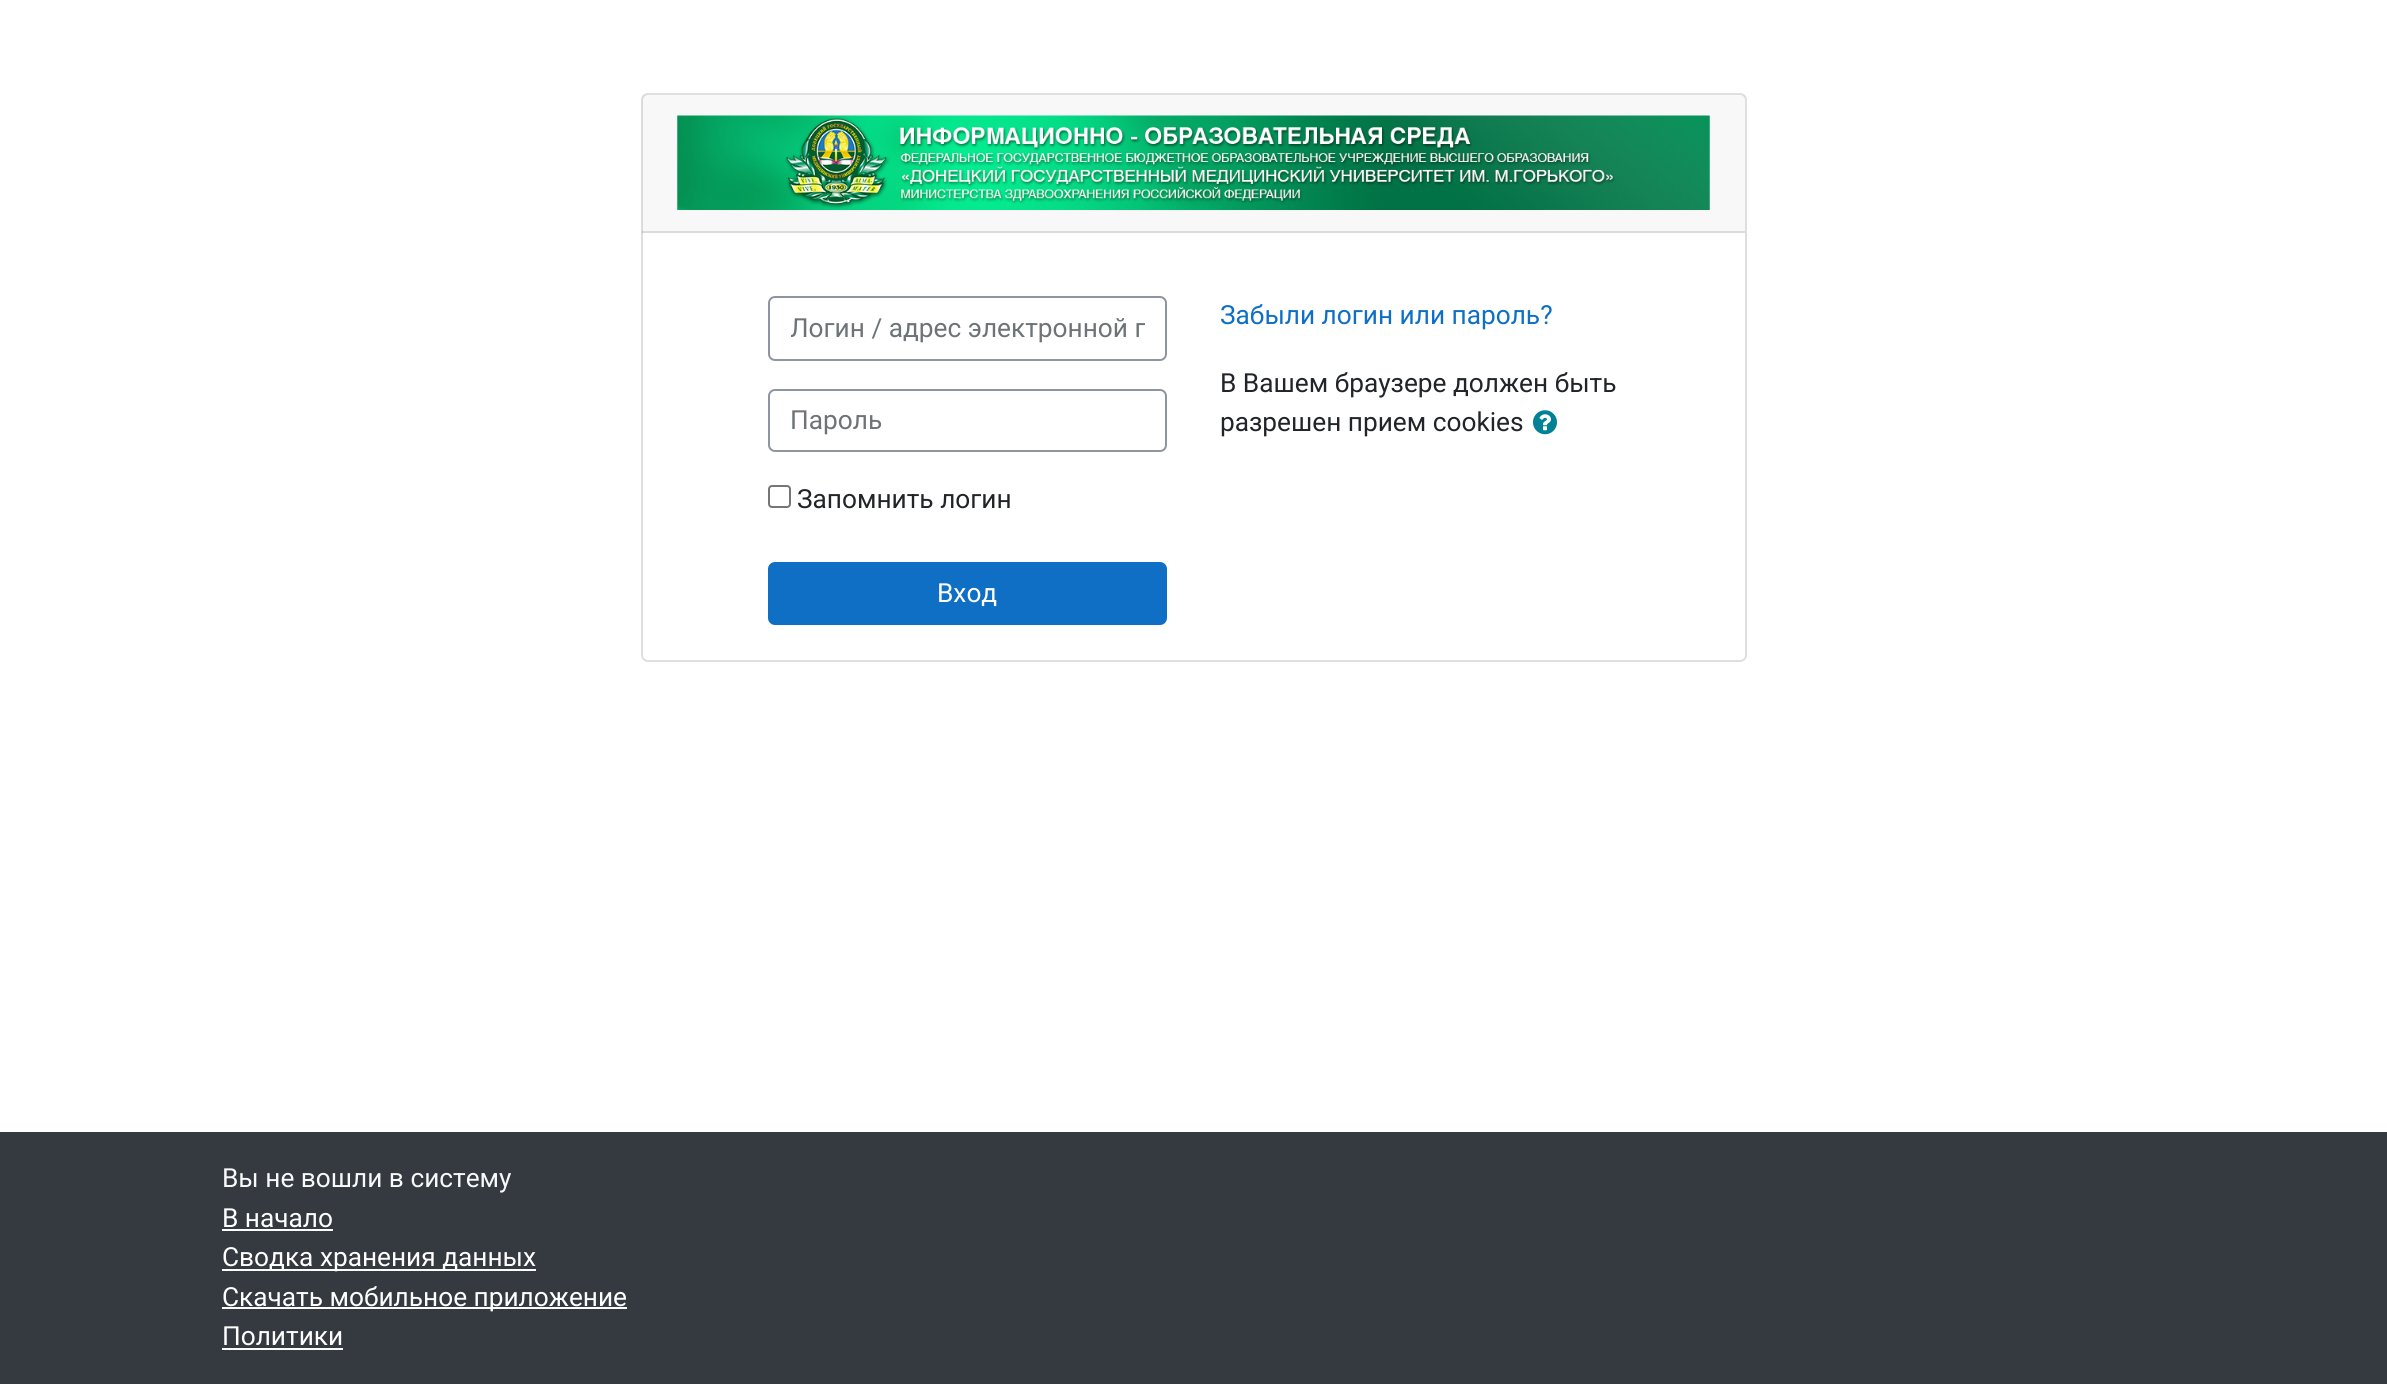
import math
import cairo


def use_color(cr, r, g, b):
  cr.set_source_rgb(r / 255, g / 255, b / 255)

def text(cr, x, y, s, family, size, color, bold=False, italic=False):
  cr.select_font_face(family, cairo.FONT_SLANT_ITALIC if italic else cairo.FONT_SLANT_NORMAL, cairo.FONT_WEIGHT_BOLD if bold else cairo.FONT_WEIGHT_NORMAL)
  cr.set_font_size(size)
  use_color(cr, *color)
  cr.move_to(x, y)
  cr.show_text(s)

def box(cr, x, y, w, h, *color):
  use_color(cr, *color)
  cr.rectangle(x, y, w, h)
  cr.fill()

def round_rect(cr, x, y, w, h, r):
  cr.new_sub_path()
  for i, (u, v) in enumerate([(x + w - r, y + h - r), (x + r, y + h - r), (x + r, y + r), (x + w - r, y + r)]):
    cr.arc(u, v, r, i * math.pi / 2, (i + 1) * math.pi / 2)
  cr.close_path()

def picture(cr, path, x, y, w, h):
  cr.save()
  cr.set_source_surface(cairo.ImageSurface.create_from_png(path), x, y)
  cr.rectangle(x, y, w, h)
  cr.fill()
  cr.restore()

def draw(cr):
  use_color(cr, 255, 255, 255)
  cr.paint()
  round_rect(cr, 642, 94, 1104, 567, 6)
  use_color(cr, 223, 223, 223)
  cr.stroke()
  cr.set_source_rgba(0, 0, 0, 0.03)
  cr.rectangle(642, 95, 1103, 138)
  cr.fill()
  cr.set_source_rgba(0, 0, 0, 0.12)
  cr.rectangle(642, 231, 1103, 2)
  cr.fill()
  picture(cr, "img_01.png", 677, 115, 1033, 95)
  round_rect(cr, 769, 297, 397, 63, 6)
  use_color(cr, 143, 149, 158)
  cr.stroke()
  round_rect(cr, 769, 390, 397, 61, 6)
  cr.stroke()
  round_rect(cr, 769, 486, 21, 21, 3)
  use_color(cr, 118, 118, 118)
  cr.stroke()
  use_color(cr, 15, 111, 197)
  round_rect(cr, 769, 563, 397, 61, 6)
  cr.fill_preserve()
  cr.stroke()
  picture(cr, "img_02.png", 1533, 410, 24, 25)
  box(cr, 0, 1132, 2387, 252, 52, 58, 64)
  box(cr, 222, 1229, 111, 2, 255, 255, 255)
  box(cr, 222, 1269, 314, 2, 255, 255, 255)
  box(cr, 222, 1307, 405, 2, 255, 255, 255)
  box(cr, 222, 1348, 121, 2, 255, 255, 255)
  cr.save()
  cr.rectangle(791, 313, 354, 32)
  cr.clip()
  text(cr, 790, 337, "Логин / адрес электронной п", "Roboto", 26.25, (110, 115, 119))
  cr.restore()
  text(cr, 790, 429, "Пароль", "Roboto", 26.25, (110, 115, 119))
  text(cr, 797, 508, "Запомнить логин", "Roboto", 26.25, (33, 37, 41))
  text(cr, 937, 602, "Вход", "Roboto", 26.25, (255, 255, 255))
  text(cr, 1220, 324, "Забыли логин или пароль?", "Roboto", 26.25, (15, 111, 197))
  text(cr, 1220, 392, "В Вашем браузере должен быть", "Roboto", 26.25, (33, 37, 41))
  text(cr, 1220, 431, "разрешен прием cookies", "Roboto", 26.25, (33, 37, 41))
  text(cr, 222, 1187, "Вы не вошли в систему", "Roboto", 26.25, (248, 249, 250))
  text(cr, 222, 1227, "В начало", "Roboto", 26.25, (255, 255, 255))
  text(cr, 222, 1266, "Сводка хранения данных", "Roboto", 26.25, (255, 255, 255))
  text(cr, 222, 1306, "Скачать мобильное приложение", "Roboto", 26.25, (255, 255, 255))
  text(cr, 222, 1345, "Политики", "Roboto", 26.25, (255, 255, 255))


surface = cairo.ImageSurface(cairo.FORMAT_RGB24, 2387, 1384)
cr = cairo.Context(surface)
options = cairo.FontOptions()
options.set_hint_metrics(cairo.HINT_METRICS_OFF)
options.set_hint_style(cairo.HINT_STYLE_NONE)
cr.set_font_options(options)
cr.set_miter_limit(4)
draw(cr)
surface.write_to_png("out.png")
